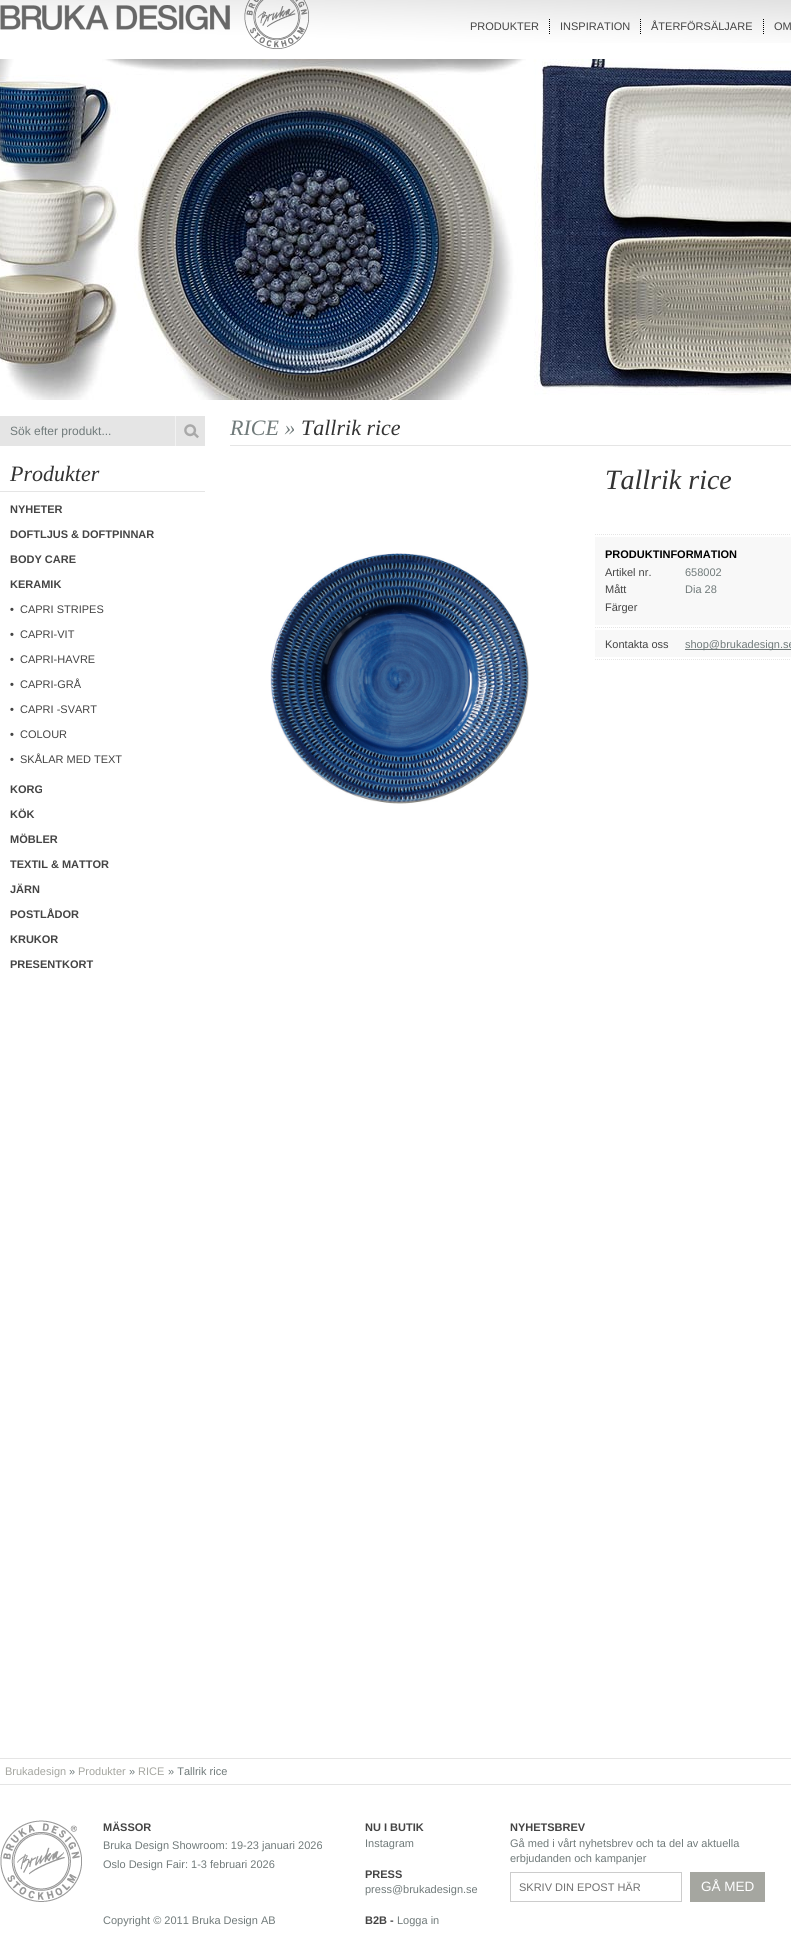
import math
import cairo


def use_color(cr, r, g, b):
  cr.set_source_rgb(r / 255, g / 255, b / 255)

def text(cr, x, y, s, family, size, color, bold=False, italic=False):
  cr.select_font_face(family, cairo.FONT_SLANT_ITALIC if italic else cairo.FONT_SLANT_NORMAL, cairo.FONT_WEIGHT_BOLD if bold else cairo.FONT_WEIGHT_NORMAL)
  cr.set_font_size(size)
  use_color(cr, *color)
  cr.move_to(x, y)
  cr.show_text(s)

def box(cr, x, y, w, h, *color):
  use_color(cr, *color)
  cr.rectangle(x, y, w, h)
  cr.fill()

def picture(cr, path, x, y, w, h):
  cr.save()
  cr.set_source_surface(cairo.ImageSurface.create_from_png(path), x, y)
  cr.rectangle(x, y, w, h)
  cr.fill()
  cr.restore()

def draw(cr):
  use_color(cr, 255, 255, 255)
  cr.paint()
  picture(cr, "img_01.png", 0, 0, 791, 43)
  picture(cr, "img_02.png", 0, 0, 309, 49)
  cr.new_path()
  cr.move_to(549.5, 19)
  cr.line_to(549.5, 34)
  use_color(cr, 0, 0, 0)
  cr.set_line_width(1)
  cr.set_dash([1, 1])
  cr.stroke()
  cr.new_path()
  cr.move_to(640.5, 19)
  cr.line_to(640.5, 34)
  cr.stroke()
  cr.new_path()
  cr.move_to(763.5, 19)
  cr.line_to(763.5, 34)
  cr.stroke()
  picture(cr, "img_03.png", 0, 59, 791, 341)
  box(cr, 0, 416, 175, 30, 229, 229, 229)
  box(cr, 176, 416, 29, 30, 229, 229, 229)
  picture(cr, "img_04.png", 184, 424, 15, 15)
  box(cr, 175, 416, 1, 30, 242, 242, 242)
  box(cr, 0, 491, 205, 1, 229, 229, 229)
  box(cr, 230, 445, 561, 1, 229, 229, 229)
  picture(cr, "img_05.png", 270, 553, 259, 251)
  cr.new_path()
  cr.move_to(595, 534.5)
  cr.line_to(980, 534.5)
  cr.stroke()
  cr.new_path()
  cr.move_to(595, 659.5)
  cr.line_to(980, 659.5)
  cr.stroke()
  box(cr, 595, 537, 196, 88, 248, 248, 248)
  cr.new_path()
  cr.move_to(595, 627.5)
  cr.line_to(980, 627.5)
  use_color(cr, 229, 229, 229)
  cr.stroke()
  box(cr, 595, 630, 196, 27, 248, 248, 248)
  box(cr, 685, 649, 106, 1, 112, 122, 122)
  box(cr, 0, 1758, 791, 1, 229, 229, 229)
  box(cr, 0, 1784, 791, 1, 229, 229, 229)
  picture(cr, "img_06.png", 0, 1820, 82, 82)
  cr.rectangle(510.5, 1872.5, 171, 29)
  use_color(cr, 204, 204, 204)
  cr.set_dash([])
  cr.stroke()
  box(cr, 690, 1872, 75, 30, 165, 166, 160)
  text(cr, 470, 30, "PRODUKTER", "Liberation Sans", 11, (68, 68, 68))
  text(cr, 560, 30, "INSPIRATION", "Liberation Sans", 11, (68, 68, 68))
  text(cr, 651, 30, "ÅTERFÖRSÄLJARE", "Liberation Sans", 11, (68, 68, 68))
  text(cr, 774, 30, "OM", "Liberation Sans", 11, (68, 68, 68))
  text(cr, 10, 435, "Sök efter produkt...", "Liberation Sans", 12, (112, 122, 122))
  text(cr, 10, 481, "Produkter", "Liberation Serif", 22, (51, 51, 51), italic=True)
  text(cr, 10, 513, "NYHETER", "Liberation Sans", 11, (68, 68, 68), bold=True)
  text(cr, 10, 538, "DOFTLJUS & DOFTPINNAR", "Liberation Sans", 11, (68, 68, 68), bold=True)
  text(cr, 10, 563, "BODY CARE", "Liberation Sans", 11, (68, 68, 68), bold=True)
  text(cr, 10, 588, "KERAMIK", "Liberation Sans", 11, (68, 68, 68), bold=True)
  text(cr, 10, 613, "•", "Liberation Sans", 11, (68, 68, 68), bold=True)
  text(cr, 20, 613, "CAPRI STRIPES", "Liberation Sans", 11, (68, 68, 68))
  text(cr, 10, 638, "•", "Liberation Sans", 11, (68, 68, 68), bold=True)
  text(cr, 20, 638, "CAPRI-VIT", "Liberation Sans", 11, (68, 68, 68))
  text(cr, 10, 663, "•", "Liberation Sans", 11, (68, 68, 68), bold=True)
  text(cr, 20, 663, "CAPRI-HAVRE", "Liberation Sans", 11, (68, 68, 68))
  text(cr, 10, 688, "•", "Liberation Sans", 11, (68, 68, 68), bold=True)
  text(cr, 20, 688, "CAPRI-GRÅ", "Liberation Sans", 11, (68, 68, 68))
  text(cr, 10, 713, "•", "Liberation Sans", 11, (68, 68, 68), bold=True)
  text(cr, 20, 713, "CAPRI -SVART", "Liberation Sans", 11, (68, 68, 68))
  text(cr, 10, 738, "•", "Liberation Sans", 11, (68, 68, 68), bold=True)
  text(cr, 20, 738, "COLOUR", "Liberation Sans", 11, (68, 68, 68))
  text(cr, 10, 763, "•", "Liberation Sans", 11, (68, 68, 68), bold=True)
  text(cr, 20, 763, "SKÅLAR MED TEXT", "Liberation Sans", 11, (68, 68, 68))
  text(cr, 10, 793, "KORG", "Liberation Sans", 11, (68, 68, 68), bold=True)
  text(cr, 10, 818, "KÖK", "Liberation Sans", 11, (68, 68, 68), bold=True)
  text(cr, 10, 843, "MÖBLER", "Liberation Sans", 11, (68, 68, 68), bold=True)
  text(cr, 10, 868, "TEXTIL & MATTOR", "Liberation Sans", 11, (68, 68, 68), bold=True)
  text(cr, 10, 893, "JÄRN", "Liberation Sans", 11, (68, 68, 68), bold=True)
  text(cr, 10, 918, "POSTLÅDOR", "Liberation Sans", 11, (68, 68, 68), bold=True)
  text(cr, 10, 943, "KRUKOR", "Liberation Sans", 11, (68, 68, 68), bold=True)
  text(cr, 10, 968, "PRESENTKORT", "Liberation Sans", 11, (68, 68, 68), bold=True)
  text(cr, 230, 435, "RICE »", "Liberation Serif", 22, (112, 122, 122), italic=True)
  text(cr, 301, 435, "Tallrik rice", "Liberation Serif", 22, (51, 51, 51), italic=True)
  text(cr, 605, 489, "Tallrik rice", "Liberation Serif", 28, (51, 51, 51), italic=True)
  text(cr, 605, 558, "PRODUKTINFORMATION", "Liberation Sans", 11, (0, 0, 0), bold=True)
  text(cr, 605, 576, "Artikel nr.", "Liberation Sans", 11, (68, 68, 68))
  text(cr, 685, 576, "658002", "Liberation Sans", 11, (112, 122, 122))
  text(cr, 605, 593, "Mått", "Liberation Sans", 11, (68, 68, 68))
  text(cr, 685, 593, "Dia 28", "Liberation Sans", 11, (112, 122, 122))
  text(cr, 605, 611, "Färger", "Liberation Sans", 11, (68, 68, 68))
  text(cr, 605, 648, "Kontakta oss", "Liberation Sans", 11, (68, 68, 68))
  text(cr, 685, 648, "shop@brukadesign.se", "Liberation Sans", 11, (112, 122, 122))
  text(cr, 5, 1775, "Brukadesign", "Liberation Sans", 11, (165, 166, 160))
  text(cr, 69, 1775, "»", "Liberation Sans", 11, (112, 122, 122))
  text(cr, 78, 1775, "Produkter", "Liberation Sans", 11, (165, 166, 160))
  text(cr, 129, 1775, "»", "Liberation Sans", 11, (112, 122, 122))
  text(cr, 138, 1775, "RICE", "Liberation Sans", 11, (165, 166, 160))
  text(cr, 168, 1775, "» Tallrik rice", "Liberation Sans", 11, (112, 122, 122))
  text(cr, 103, 1831, "MÄSSOR", "Liberation Sans", 11, (68, 68, 68), bold=True)
  text(cr, 103, 1849, "Bruka Design Showroom: 19-23 januari 2026", "Liberation Sans", 11, (112, 122, 122))
  text(cr, 103, 1868, "Oslo Design Fair: 1-3 februari 2026", "Liberation Sans", 11, (112, 122, 122))
  text(cr, 365, 1831, "NU I BUTIK", "Liberation Sans", 11, (68, 68, 68), bold=True)
  text(cr, 365, 1847, "Instagram", "Liberation Sans", 11, (112, 122, 122))
  text(cr, 365, 1878, "PRESS", "Liberation Sans", 11, (68, 68, 68), bold=True)
  text(cr, 365, 1893, "press@brukadesign.se", "Liberation Sans", 11, (112, 122, 122))
  text(cr, 365, 1924, "B2B -", "Liberation Sans", 11, (68, 68, 68), bold=True)
  text(cr, 397, 1924, "Logga in", "Liberation Sans", 11, (112, 122, 122))
  text(cr, 510, 1831, "NYHETSBREV", "Liberation Sans", 11, (68, 68, 68), bold=True)
  text(cr, 510, 1847, "Gå med i vårt nyhetsbrev och ta del av aktuella", "Liberation Sans", 11, (112, 122, 122))
  text(cr, 510, 1862, "erbjudanden och kampanjer", "Liberation Sans", 11, (112, 122, 122))
  text(cr, 519, 1891, "SKRIV DIN EPOST HÄR", "Liberation Sans", 11, (112, 112, 112))
  text(cr, 701, 1891, "GÅ MED", "Liberation Sans", 13.5, (255, 255, 255))
  text(cr, 103, 1924, "Copyright © 2011 Bruka Design AB", "Liberation Sans", 11, (112, 122, 122))


surface = cairo.ImageSurface(cairo.FORMAT_RGB24, 791, 1959)
cr = cairo.Context(surface)
options = cairo.FontOptions()
options.set_hint_metrics(cairo.HINT_METRICS_OFF)
options.set_hint_style(cairo.HINT_STYLE_NONE)
cr.set_font_options(options)
cr.set_miter_limit(4)
draw(cr)
surface.write_to_png("out.png")
